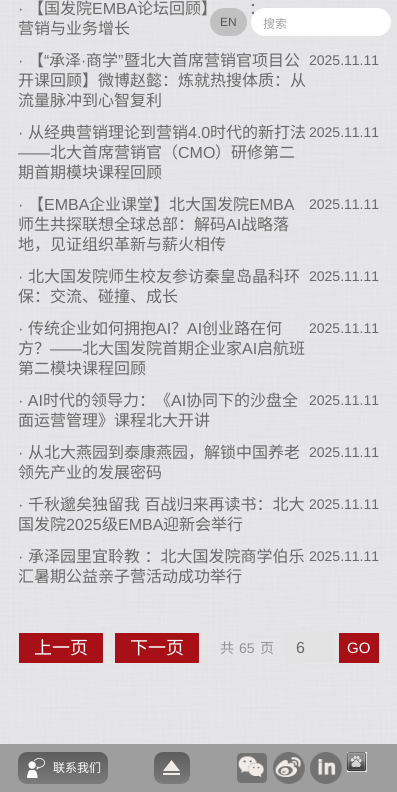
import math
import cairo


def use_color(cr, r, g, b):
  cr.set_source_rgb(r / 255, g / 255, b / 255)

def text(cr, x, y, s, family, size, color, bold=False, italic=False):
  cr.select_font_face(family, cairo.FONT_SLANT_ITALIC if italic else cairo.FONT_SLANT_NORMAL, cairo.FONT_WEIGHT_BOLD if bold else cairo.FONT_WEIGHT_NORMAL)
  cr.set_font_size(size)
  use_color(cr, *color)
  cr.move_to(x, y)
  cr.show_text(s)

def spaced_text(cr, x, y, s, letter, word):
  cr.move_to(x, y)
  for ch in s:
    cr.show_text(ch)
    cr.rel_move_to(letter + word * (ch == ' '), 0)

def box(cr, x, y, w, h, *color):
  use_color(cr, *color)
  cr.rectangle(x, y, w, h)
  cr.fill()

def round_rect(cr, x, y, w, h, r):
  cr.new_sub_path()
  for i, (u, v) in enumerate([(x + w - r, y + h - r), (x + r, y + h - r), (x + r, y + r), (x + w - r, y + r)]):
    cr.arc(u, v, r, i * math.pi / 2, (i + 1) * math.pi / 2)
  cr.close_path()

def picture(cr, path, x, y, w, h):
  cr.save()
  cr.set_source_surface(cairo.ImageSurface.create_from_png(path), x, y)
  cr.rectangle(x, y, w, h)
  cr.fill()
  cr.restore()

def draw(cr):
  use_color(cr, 255, 255, 255)
  cr.paint()
  picture(cr, "img_01.png", 0, 0, 397, 744)
  box(cr, 19, 633, 84, 30, 167, 16, 22)
  box(cr, 115, 633, 84, 30, 167, 16, 22)
  box(cr, 284, 633, 50, 30, 227, 227, 227)
  box(cr, 339, 633, 40, 30, 167, 16, 22)
  use_color(cr, 193, 193, 193)
  round_rect(cr, 210, 8, 37, 28, 14)
  cr.fill()
  box(cr, 0, 744, 397, 48, 158, 158, 159)
  gradient = cairo.LinearGradient(63, 752, 63, 784)
  gradient.add_color_stop_rgba(0, 0.361, 0.361, 0.365, 1)
  gradient.add_color_stop_rgba(1, 0.486, 0.486, 0.49, 1)
  cr.set_source(gradient)
  round_rect(cr, 18, 752, 90, 32, 9)
  cr.fill()
  picture(cr, "img_02.png", 27, 758, 18, 20)
  gradient = cairo.LinearGradient(172, 752, 172, 784)
  gradient.add_color_stop_rgba(0, 0.361, 0.361, 0.365, 1)
  gradient.add_color_stop_rgba(1, 0.486, 0.486, 0.49, 1)
  cr.set_source(gradient)
  round_rect(cr, 154, 752, 36, 32, 9)
  cr.fill()
  picture(cr, "img_03.png", 163, 760, 17, 15)
  picture(cr, "img_04.png", 237, 753, 30, 30)
  picture(cr, "img_05.png", 273, 752, 32, 32)
  picture(cr, "img_06.png", 310, 752, 32, 32)
  picture(cr, "img_07.png", 347, 752, 20, 20)
  text(cr, 18, 14, "·", "Liberation Sans", 16, (106, 106, 106))
  text(cr, 28, 14, "【国发院", "Noto Sans CJK SC", 16, (106, 106, 106))
  text(cr, 92, 14, "EMBA", "Liberation Sans", 16, (106, 106, 106))
  text(cr, 137, 14, "论坛回顾】", "Noto Sans CJK SC", 16, (106, 106, 106))
  text(cr, 249, 14, "：", "Noto Sans CJK SC", 16, (106, 106, 106))
  text(cr, 18, 34, "营销与业务增长", "Noto Sans CJK SC", 16, (106, 106, 106))
  text(cr, 28, 66, "【", "Noto Sans CJK SC", 16, (106, 106, 106))
  text(cr, 44, 66, "“", "Liberation Sans", 16, (106, 106, 106))
  text(cr, 49, 66, "承泽", "Noto Sans CJK SC", 16, (106, 106, 106))
  text(cr, 86, 66, "商学", "Noto Sans CJK SC", 16, (106, 106, 106))
  text(cr, 118, 66, "”", "Liberation Sans", 16, (106, 106, 106))
  text(cr, 124, 66, "暨北大首席营销官项目公", "Noto Sans CJK SC", 16, (106, 106, 106))
  text(cr, 18, 66, "·", "Liberation Sans", 16, (106, 106, 106))
  text(cr, 81, 66, "·", "Liberation Sans", 16, (106, 106, 106))
  text(cr, 18, 86, "开课回顾】微博赵懿：炼就热搜体质：从", "Noto Sans CJK SC", 16, (106, 106, 106))
  text(cr, 18, 106, "流量脉冲到心智复利", "Noto Sans CJK SC", 16, (106, 106, 106))
  text(cr, 309, 65, "2025.11.11", "Liberation Sans", 14, (106, 106, 106))
  text(cr, 18, 138, "·", "Liberation Sans", 16, (106, 106, 106))
  text(cr, 28, 138, "从经典营销理论到营销", "Noto Sans CJK SC", 16, (106, 106, 106))
  text(cr, 188, 138, "4.0", "Liberation Sans", 16, (106, 106, 106))
  text(cr, 210, 138, "时代的新打法", "Noto Sans CJK SC", 16, (106, 106, 106))
  text(cr, 18, 158, "——", "Liberation Sans", 16, (106, 106, 106))
  text(cr, 50, 158, "北大首席营销官（", "Noto Sans CJK SC", 16, (106, 106, 106))
  text(cr, 178, 158, "CMO", "Liberation Sans", 16, (106, 106, 106))
  text(cr, 215, 158, "）研修第二", "Noto Sans CJK SC", 16, (106, 106, 106))
  text(cr, 18, 178, "期首期模块课程回顾", "Noto Sans CJK SC", 16, (106, 106, 106))
  text(cr, 309, 137, "2025.11.11", "Liberation Sans", 14, (106, 106, 106))
  text(cr, 18, 210, "·", "Liberation Sans", 16, (106, 106, 106))
  text(cr, 28, 210, "【", "Noto Sans CJK SC", 16, (106, 106, 106))
  text(cr, 44, 210, "EMBA", "Liberation Sans", 16, (106, 106, 106))
  text(cr, 89, 210, "企业课堂】北大国发院", "Noto Sans CJK SC", 16, (106, 106, 106))
  text(cr, 249, 210, "EMBA", "Liberation Sans", 16, (106, 106, 106))
  text(cr, 18, 230, "师生共探联想全球总部：解码", "Noto Sans CJK SC", 16, (106, 106, 106))
  text(cr, 226, 230, "AI", "Liberation Sans", 16, (106, 106, 106))
  text(cr, 241, 230, "战略落", "Noto Sans CJK SC", 16, (106, 106, 106))
  text(cr, 18, 250, "地，见证组织革新与薪火相传", "Noto Sans CJK SC", 16, (106, 106, 106))
  text(cr, 309, 209, "2025.11.11", "Liberation Sans", 14, (106, 106, 106))
  text(cr, 18, 282, "·", "Liberation Sans", 16, (106, 106, 106))
  text(cr, 28, 282, "北大国发院师生校友参访秦皇岛晶科环", "Noto Sans CJK SC", 16, (106, 106, 106))
  text(cr, 18, 302, "保：交流、碰撞、成长", "Noto Sans CJK SC", 16, (106, 106, 106))
  text(cr, 309, 281, "2025.11.11", "Liberation Sans", 14, (106, 106, 106))
  text(cr, 18, 334, "·", "Liberation Sans", 16, (106, 106, 106))
  text(cr, 28, 334, "传统企业如何拥抱", "Noto Sans CJK SC", 16, (106, 106, 106))
  text(cr, 156, 334, "AI", "Liberation Sans", 16, (106, 106, 106))
  text(cr, 171, 334, "？", "Noto Sans CJK SC", 16, (106, 106, 106))
  text(cr, 187, 334, "AI", "Liberation Sans", 16, (106, 106, 106))
  text(cr, 202, 334, "创业路在何", "Noto Sans CJK SC", 16, (106, 106, 106))
  text(cr, 18, 354, "方？", "Noto Sans CJK SC", 16, (106, 106, 106))
  text(cr, 50, 354, "——", "Liberation Sans", 16, (106, 106, 106))
  text(cr, 82, 354, "北大国发院首期企业家", "Noto Sans CJK SC", 16, (106, 106, 106))
  text(cr, 242, 354, "AI", "Liberation Sans", 16, (106, 106, 106))
  text(cr, 257, 354, "启航班", "Noto Sans CJK SC", 16, (106, 106, 106))
  text(cr, 18, 374, "第二模块课程回顾", "Noto Sans CJK SC", 16, (106, 106, 106))
  text(cr, 309, 333, "2025.11.11", "Liberation Sans", 14, (106, 106, 106))
  text(cr, 18, 406, "· AI", "Liberation Sans", 16, (106, 106, 106))
  text(cr, 43, 406, "时代的领导力：《", "Noto Sans CJK SC", 16, (106, 106, 106))
  text(cr, 171, 406, "AI", "Liberation Sans", 16, (106, 106, 106))
  text(cr, 186, 406, "协同下的沙盘全", "Noto Sans CJK SC", 16, (106, 106, 106))
  text(cr, 18, 426, "面运营管理》课程北大开讲", "Noto Sans CJK SC", 16, (106, 106, 106))
  text(cr, 309, 405, "2025.11.11", "Liberation Sans", 14, (106, 106, 106))
  text(cr, 18, 458, "·", "Liberation Sans", 16, (106, 106, 106))
  text(cr, 28, 458, "从北大燕园到泰康燕园，解锁中国养老", "Noto Sans CJK SC", 16, (106, 106, 106))
  text(cr, 18, 478, "领先产业的发展密码", "Noto Sans CJK SC", 16, (106, 106, 106))
  text(cr, 309, 457, "2025.11.11", "Liberation Sans", 14, (106, 106, 106))
  text(cr, 18, 510, "·", "Liberation Sans", 16, (106, 106, 106))
  cr.select_font_face("Noto Sans CJK SC")
  spaced_text(cr, 28, 510, "千秋邈矣独留我 百战归来再读书：北大", 0, 1)
  text(cr, 18, 530, "国发院", "Noto Sans CJK SC", 16, (106, 106, 106))
  text(cr, 66, 530, "2025", "Liberation Sans", 16, (106, 106, 106))
  text(cr, 102, 530, "级", "Noto Sans CJK SC", 16, (106, 106, 106))
  text(cr, 118, 530, "EMBA", "Liberation Sans", 16, (106, 106, 106))
  text(cr, 163, 530, "迎新会举行", "Noto Sans CJK SC", 16, (106, 106, 106))
  text(cr, 309, 509, "2025.11.11", "Liberation Sans", 14, (106, 106, 106))
  text(cr, 18, 562, "·", "Liberation Sans", 16, (106, 106, 106))
  cr.select_font_face("Noto Sans CJK SC")
  spaced_text(cr, 28, 562, "承泽园里宜聆教 ：北大国发院商学伯乐", 0, 1)
  text(cr, 18, 582, "汇暑期公益亲子营活动成功举行", "Noto Sans CJK SC", 16, (106, 106, 106))
  text(cr, 309, 561, "2025.11.11", "Liberation Sans", 14, (106, 106, 106))
  text(cr, 34, 654, "上一页", "Noto Sans CJK SC", 18, (255, 255, 255))
  text(cr, 130, 654, "下一页", "Noto Sans CJK SC", 18, (255, 255, 255))
  text(cr, 220, 653, "共", "Noto Sans CJK SC", 14, (147, 147, 147))
  text(cr, 239, 653, "65", "Liberation Sans", 14, (147, 147, 147))
  text(cr, 260, 653, "页", "Noto Sans CJK SC", 14, (147, 147, 147))
  text(cr, 296, 653, "6", "Liberation Sans", 16, (106, 106, 106))
  text(cr, 347, 653, "GO", "Liberation Sans", 15, (255, 255, 255))
  text(cr, 220, 26, "EN", "Liberation Sans", 12, (85, 85, 87))
  use_color(cr, 255, 255, 255)
  round_rect(cr, 251, 8, 140, 28, 14)
  cr.fill()
  text(cr, 263, 28, "搜索", "Noto Sans CJK SC", 12, (163, 163, 163))
  text(cr, 53, 772, "联系我们", "Noto Sans CJK SC", 12, (255, 255, 255))


surface = cairo.ImageSurface(cairo.FORMAT_RGB24, 397, 792)
cr = cairo.Context(surface)
options = cairo.FontOptions()
options.set_hint_metrics(cairo.HINT_METRICS_OFF)
options.set_hint_style(cairo.HINT_STYLE_NONE)
cr.set_font_options(options)
cr.set_miter_limit(4)
draw(cr)
surface.write_to_png("out.png")
